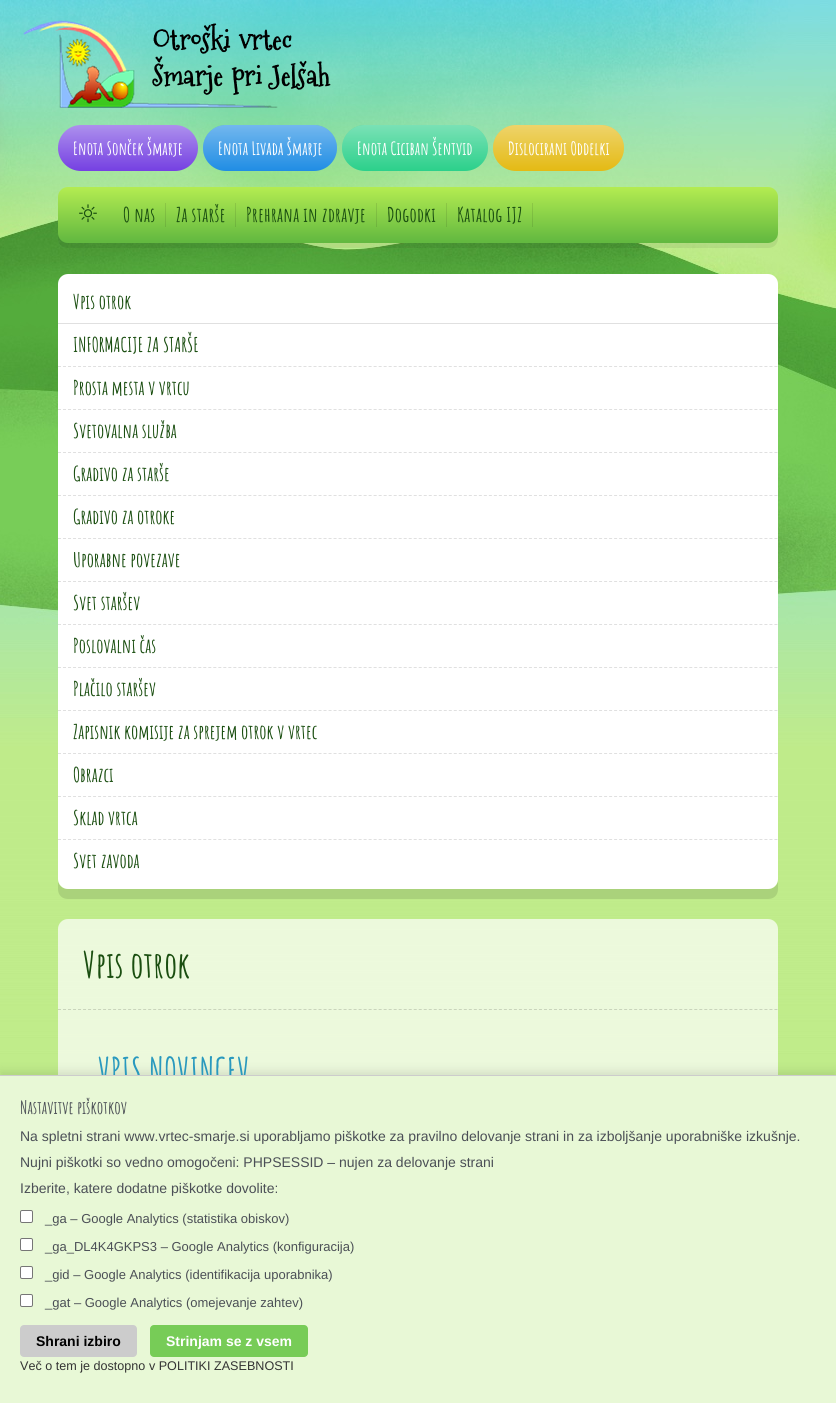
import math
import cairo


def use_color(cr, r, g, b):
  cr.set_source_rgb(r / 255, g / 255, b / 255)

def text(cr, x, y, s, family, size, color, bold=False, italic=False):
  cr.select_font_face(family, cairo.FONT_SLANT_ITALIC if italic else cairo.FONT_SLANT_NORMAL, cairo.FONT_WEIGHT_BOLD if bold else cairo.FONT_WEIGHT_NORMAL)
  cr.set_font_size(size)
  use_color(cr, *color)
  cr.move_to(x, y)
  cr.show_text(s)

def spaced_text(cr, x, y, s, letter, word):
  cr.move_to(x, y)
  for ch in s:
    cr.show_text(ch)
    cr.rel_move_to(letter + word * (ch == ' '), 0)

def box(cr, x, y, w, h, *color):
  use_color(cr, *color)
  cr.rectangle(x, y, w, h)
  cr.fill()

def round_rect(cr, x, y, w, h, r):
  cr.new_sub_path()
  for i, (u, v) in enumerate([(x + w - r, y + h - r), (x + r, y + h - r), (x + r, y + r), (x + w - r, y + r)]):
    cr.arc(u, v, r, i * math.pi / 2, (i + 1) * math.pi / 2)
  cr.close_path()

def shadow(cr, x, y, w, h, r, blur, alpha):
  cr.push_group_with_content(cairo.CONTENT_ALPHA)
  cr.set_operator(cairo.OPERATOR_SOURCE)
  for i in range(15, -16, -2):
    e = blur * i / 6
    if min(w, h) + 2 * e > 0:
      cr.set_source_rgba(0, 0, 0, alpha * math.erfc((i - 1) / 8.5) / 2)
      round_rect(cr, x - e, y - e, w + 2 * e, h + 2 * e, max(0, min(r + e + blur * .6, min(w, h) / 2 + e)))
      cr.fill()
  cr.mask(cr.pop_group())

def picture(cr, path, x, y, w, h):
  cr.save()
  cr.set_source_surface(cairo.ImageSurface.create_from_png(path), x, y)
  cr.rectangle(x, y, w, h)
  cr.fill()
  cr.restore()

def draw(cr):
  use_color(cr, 255, 255, 255)
  cr.paint()
  picture(cr, "img_01.png", 0, 625, 836, 450)
  picture(cr, "img_02.png", 0, 0, 836, 625)
  picture(cr, "img_03.png", 23, 20, 255, 88)
  gradient = cairo.LinearGradient(128, 125, 128, 171)
  gradient.add_color_stop_rgba(0, 0.678, 0.565, 0.929, 1)
  gradient.add_color_stop_rgba(1, 0.459, 0.251, 0.886, 1)
  cr.set_source(gradient)
  round_rect(cr, 58, 125, 140, 46, 23)
  cr.fill()
  use_color(cr, 32, 141, 228)
  round_rect(cr, 203, 125, 134, 46, 23)
  cr.fill()
  gradient = cairo.LinearGradient(270, 125, 270, 171)
  gradient.add_color_stop_rgba(0, 1, 1, 1, 0.37)
  gradient.add_color_stop_rgba(1, 1, 1, 1, 0)
  cr.set_source(gradient)
  round_rect(cr, 203, 125, 134, 46, 23)
  cr.fill()
  use_color(cr, 44, 208, 139)
  round_rect(cr, 342, 125, 146, 46, 23)
  cr.fill()
  gradient = cairo.LinearGradient(415, 125, 415, 171)
  gradient.add_color_stop_rgba(0, 1, 1, 1, 0.37)
  gradient.add_color_stop_rgba(1, 1, 1, 1, 0)
  cr.set_source(gradient)
  round_rect(cr, 342, 125, 146, 46, 23)
  cr.fill()
  use_color(cr, 228, 186, 20)
  round_rect(cr, 493, 125, 131, 46, 23)
  cr.fill()
  gradient = cairo.LinearGradient(559, 125, 559, 171)
  gradient.add_color_stop_rgba(0, 1, 1, 1, 0.37)
  gradient.add_color_stop_rgba(1, 1, 1, 1, 0)
  cr.set_source(gradient)
  round_rect(cr, 493, 125, 131, 46, 23)
  cr.fill()
  cr.set_source_rgba(0, 0, 0, 0.07)
  cr.new_path()
  cr.move_to(58, 233)
  cr.line_to(58, 238)
  cr.curve_to(58, 244, 62, 248, 68, 248)
  cr.line_to(768, 248)
  cr.curve_to(774, 248, 778, 244, 778, 238)
  cr.line_to(778, 233)
  cr.curve_to(778, 239, 774, 243, 768, 243)
  cr.line_to(68, 243)
  cr.curve_to(62, 243, 58, 239, 58, 233)
  cr.close_path()
  cr.fill()
  gradient = cairo.LinearGradient(418, 187, 418, 243)
  gradient.add_color_stop_rgba(0, 0.706, 0.925, 0.318, 1)
  gradient.add_color_stop_rgba(0.97, 0.388, 0.725, 0.251, 1)
  cr.set_source(gradient)
  round_rect(cr, 58, 187, 720, 56, 10)
  cr.fill()
  picture(cr, "img_04.png", 79, 204, 18, 19)
  cr.set_source_rgba(0, 0, 0, 0.1)
  cr.rectangle(165, 203, 1, 24)
  cr.fill()
  cr.rectangle(235, 203, 1, 24)
  cr.fill()
  cr.rectangle(376, 203, 1, 24)
  cr.fill()
  cr.rectangle(446, 203, 1, 24)
  cr.fill()
  cr.rectangle(532, 203, 1, 24)
  cr.fill()
  use_color(cr, 170, 210, 123)
  cr.new_path()
  cr.move_to(58, 879)
  cr.line_to(58, 889)
  cr.curve_to(58, 895, 62, 899, 68, 899)
  cr.line_to(768, 899)
  cr.curve_to(774, 899, 778, 895, 778, 889)
  cr.line_to(778, 879)
  cr.curve_to(778, 885, 774, 889, 768, 889)
  cr.line_to(68, 889)
  cr.curve_to(62, 889, 58, 885, 58, 879)
  cr.close_path()
  cr.fill()
  use_color(cr, 255, 255, 255)
  round_rect(cr, 58, 274, 720, 615, 10)
  cr.fill()
  box(cr, 58, 323, 720, 1, 224, 224, 224)
  cr.new_path()
  cr.move_to(58, 366.5)
  cr.line_to(778, 366.5)
  cr.set_line_width(1)
  cr.set_dash([3, 2.01])
  cr.stroke()
  cr.new_path()
  cr.move_to(58, 409.5)
  cr.line_to(778, 409.5)
  cr.stroke()
  cr.new_path()
  cr.move_to(58, 452.5)
  cr.line_to(778, 452.5)
  cr.stroke()
  cr.new_path()
  cr.move_to(58, 495.5)
  cr.line_to(778, 495.5)
  cr.stroke()
  cr.new_path()
  cr.move_to(58, 538.5)
  cr.line_to(778, 538.5)
  cr.stroke()
  cr.new_path()
  cr.move_to(58, 581.5)
  cr.line_to(778, 581.5)
  cr.stroke()
  cr.new_path()
  cr.move_to(58, 624.5)
  cr.line_to(778, 624.5)
  cr.stroke()
  cr.new_path()
  cr.move_to(58, 667.5)
  cr.line_to(778, 667.5)
  cr.stroke()
  cr.new_path()
  cr.move_to(58, 710.5)
  cr.line_to(778, 710.5)
  cr.stroke()
  cr.new_path()
  cr.move_to(58, 753.5)
  cr.line_to(778, 753.5)
  cr.stroke()
  cr.new_path()
  cr.move_to(58, 796.5)
  cr.line_to(778, 796.5)
  cr.stroke()
  cr.new_path()
  cr.move_to(58, 839.5)
  cr.line_to(778, 839.5)
  cr.stroke()
  cr.set_source_rgba(1, 1, 1, 0.7)
  round_rect(cr, 58, 919, 720, 251, 10)
  cr.fill()
  cr.new_path()
  cr.move_to(58, 1009.5)
  cr.line_to(778, 1009.5)
  use_color(cr, 201, 212, 187)
  cr.stroke()
  use_color(cr, 0, 0, 0)
  shadow(cr, 0, 1071, 836, 328, 0, 5, 0.1)
  cr.select_font_face("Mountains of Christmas", cairo.FONT_SLANT_NORMAL, cairo.FONT_WEIGHT_BOLD)
  cr.set_font_size(28)
  use_color(cr, 0, 0, 0)
  spaced_text(cr, 153, 50, "Otroški vrtec", 0.25, 0)
  spaced_text(cr, 153, 86, "Šmarje pri Jelšah", 0.25, 0)
  text(cr, 73, 155, "Enota Sonček Šmarje", "Amatic SC", 18, (255, 255, 255), bold=True)
  text(cr, 218, 155, "Enota Livada Šmarje", "Amatic SC", 18, (255, 255, 255), bold=True)
  text(cr, 357, 155, "Enota Ciciban Šentvid", "Amatic SC", 18, (255, 255, 255), bold=True)
  text(cr, 508, 155, "Dislocirani Oddelki", "Amatic SC", 18, (255, 255, 255), bold=True)
  cr.set_font_size(20)
  use_color(cr, 26, 78, 16)
  spaced_text(cr, 123, 222, "O nas", 0.25, 0)
  spaced_text(cr, 176, 222, "Za starše", 0.25, 0)
  spaced_text(cr, 246, 222, "Prehrana in zdravje", 0.25, 0)
  spaced_text(cr, 387, 222, "Dogodki", 0.25, 0)
  spaced_text(cr, 457, 222, "Katalog IJZ", 0.25, 0)
  text(cr, 73, 309, "Vpis otrok", "Amatic SC", 20, (26, 78, 16), bold=True)
  text(cr, 73, 352, "INFORMACIJE ZA STARŠE", "Amatic SC", 20, (26, 78, 16), bold=True)
  text(cr, 73, 395, "Prosta mesta v vrtcu", "Amatic SC", 20, (26, 78, 16), bold=True)
  text(cr, 73, 438, "Svetovalna služba", "Amatic SC", 20, (26, 78, 16), bold=True)
  text(cr, 73, 481, "Gradivo za starše", "Amatic SC", 20, (26, 78, 16), bold=True)
  text(cr, 73, 524, "Gradivo za otroke", "Amatic SC", 20, (26, 78, 16), bold=True)
  text(cr, 73, 567, "Uporabne povezave", "Amatic SC", 20, (26, 78, 16), bold=True)
  text(cr, 73, 610, "Svet staršev", "Amatic SC", 20, (26, 78, 16), bold=True)
  text(cr, 73, 653, "Poslovalni čas", "Amatic SC", 20, (26, 78, 16), bold=True)
  text(cr, 73, 696, "Plačilo staršev", "Amatic SC", 20, (26, 78, 16), bold=True)
  text(cr, 73, 739, "Zapisnik komisije za sprejem otrok v vrtec", "Amatic SC", 20, (26, 78, 16), bold=True)
  text(cr, 73, 782, "Obrazci", "Amatic SC", 20, (26, 78, 16), bold=True)
  text(cr, 73, 825, "Sklad vrtca", "Amatic SC", 20, (26, 78, 16), bold=True)
  text(cr, 73, 868, "Svet zavoda", "Amatic SC", 20, (26, 78, 16), bold=True)
  cr.set_font_size(36)
  spaced_text(cr, 83, 978, "Vpis otrok", 0.25, 0)
  use_color(cr, 41, 153, 190)
  spaced_text(cr, 98, 1084, "VPIS NOVINCEV", 0.25, 0)
  box(cr, 0, 1076, 836, 327, 232, 248, 214)
  box(cr, 0, 1075, 836, 1, 204, 204, 204)
  text(cr, 20, 1114, "Nastavitve piškotkov", "Amatic SC", 18, (75, 79, 86), bold=True)
  text(cr, 20, 1141, "Na spletni strani www.vrtec-smarje.si uporabljamo piškotke za pravilno delovanje strani in za izboljšanje uporabniške izkušnje.", "Liberation Sans", 14, (75, 79, 86))
  text(cr, 20, 1167, "Nujni piškotki so vedno omogočeni: PHPSESSID – nujen za delovanje strani", "Liberation Sans", 14, (75, 79, 86))
  text(cr, 20, 1193, "Izberite, katere dodatne piškotke dovolite:", "Liberation Sans", 14, (75, 79, 86))
  use_color(cr, 255, 255, 255)
  round_rect(cr, 20.5, 1210.5, 12, 12, 1.5)
  cr.fill_preserve()
  use_color(cr, 118, 118, 118)
  cr.set_dash([])
  cr.stroke()
  text(cr, 45, 1223, "_ga – Google Analytics (statistika obiskov)", "Liberation Sans", 13, (75, 79, 86))
  use_color(cr, 255, 255, 255)
  round_rect(cr, 20.5, 1238.5, 12, 12, 1.5)
  cr.fill_preserve()
  use_color(cr, 118, 118, 118)
  cr.stroke()
  text(cr, 45, 1251, "_ga_DL4K4GKPS3 – Google Analytics (konfiguracija)", "Liberation Sans", 13, (75, 79, 86))
  use_color(cr, 255, 255, 255)
  round_rect(cr, 20.5, 1266.5, 12, 12, 1.5)
  cr.fill_preserve()
  use_color(cr, 118, 118, 118)
  cr.stroke()
  text(cr, 45, 1279, "_gid – Google Analytics (identifikacija uporabnika)", "Liberation Sans", 13, (75, 79, 86))
  use_color(cr, 255, 255, 255)
  round_rect(cr, 20.5, 1294.5, 12, 12, 1.5)
  cr.fill_preserve()
  use_color(cr, 118, 118, 118)
  cr.stroke()
  text(cr, 45, 1307, "_gat – Google Analytics (omejevanje zahtev)", "Liberation Sans", 13, (75, 79, 86))
  use_color(cr, 204, 204, 204)
  round_rect(cr, 20, 1325, 117, 32, 4)
  cr.fill()
  text(cr, 36, 1346, "Shrani izbiro", "Liberation Sans", 14, (0, 0, 0), bold=True)
  use_color(cr, 119, 204, 87)
  round_rect(cr, 150, 1325, 158, 32, 4)
  cr.fill()
  text(cr, 166, 1346, "Strinjam se z vsem", "Liberation Sans", 14, (255, 255, 255), bold=True)
  text(cr, 20, 1370, "Več o tem je dostopno v POLITIKI ZASEBNOSTI", "Liberation Sans", 12.6, (51, 51, 51))


surface = cairo.ImageSurface(cairo.FORMAT_RGB24, 836, 1403)
cr = cairo.Context(surface)
options = cairo.FontOptions()
options.set_hint_metrics(cairo.HINT_METRICS_OFF)
options.set_hint_style(cairo.HINT_STYLE_NONE)
cr.set_font_options(options)
cr.set_miter_limit(4)
draw(cr)
surface.write_to_png("out.png")
